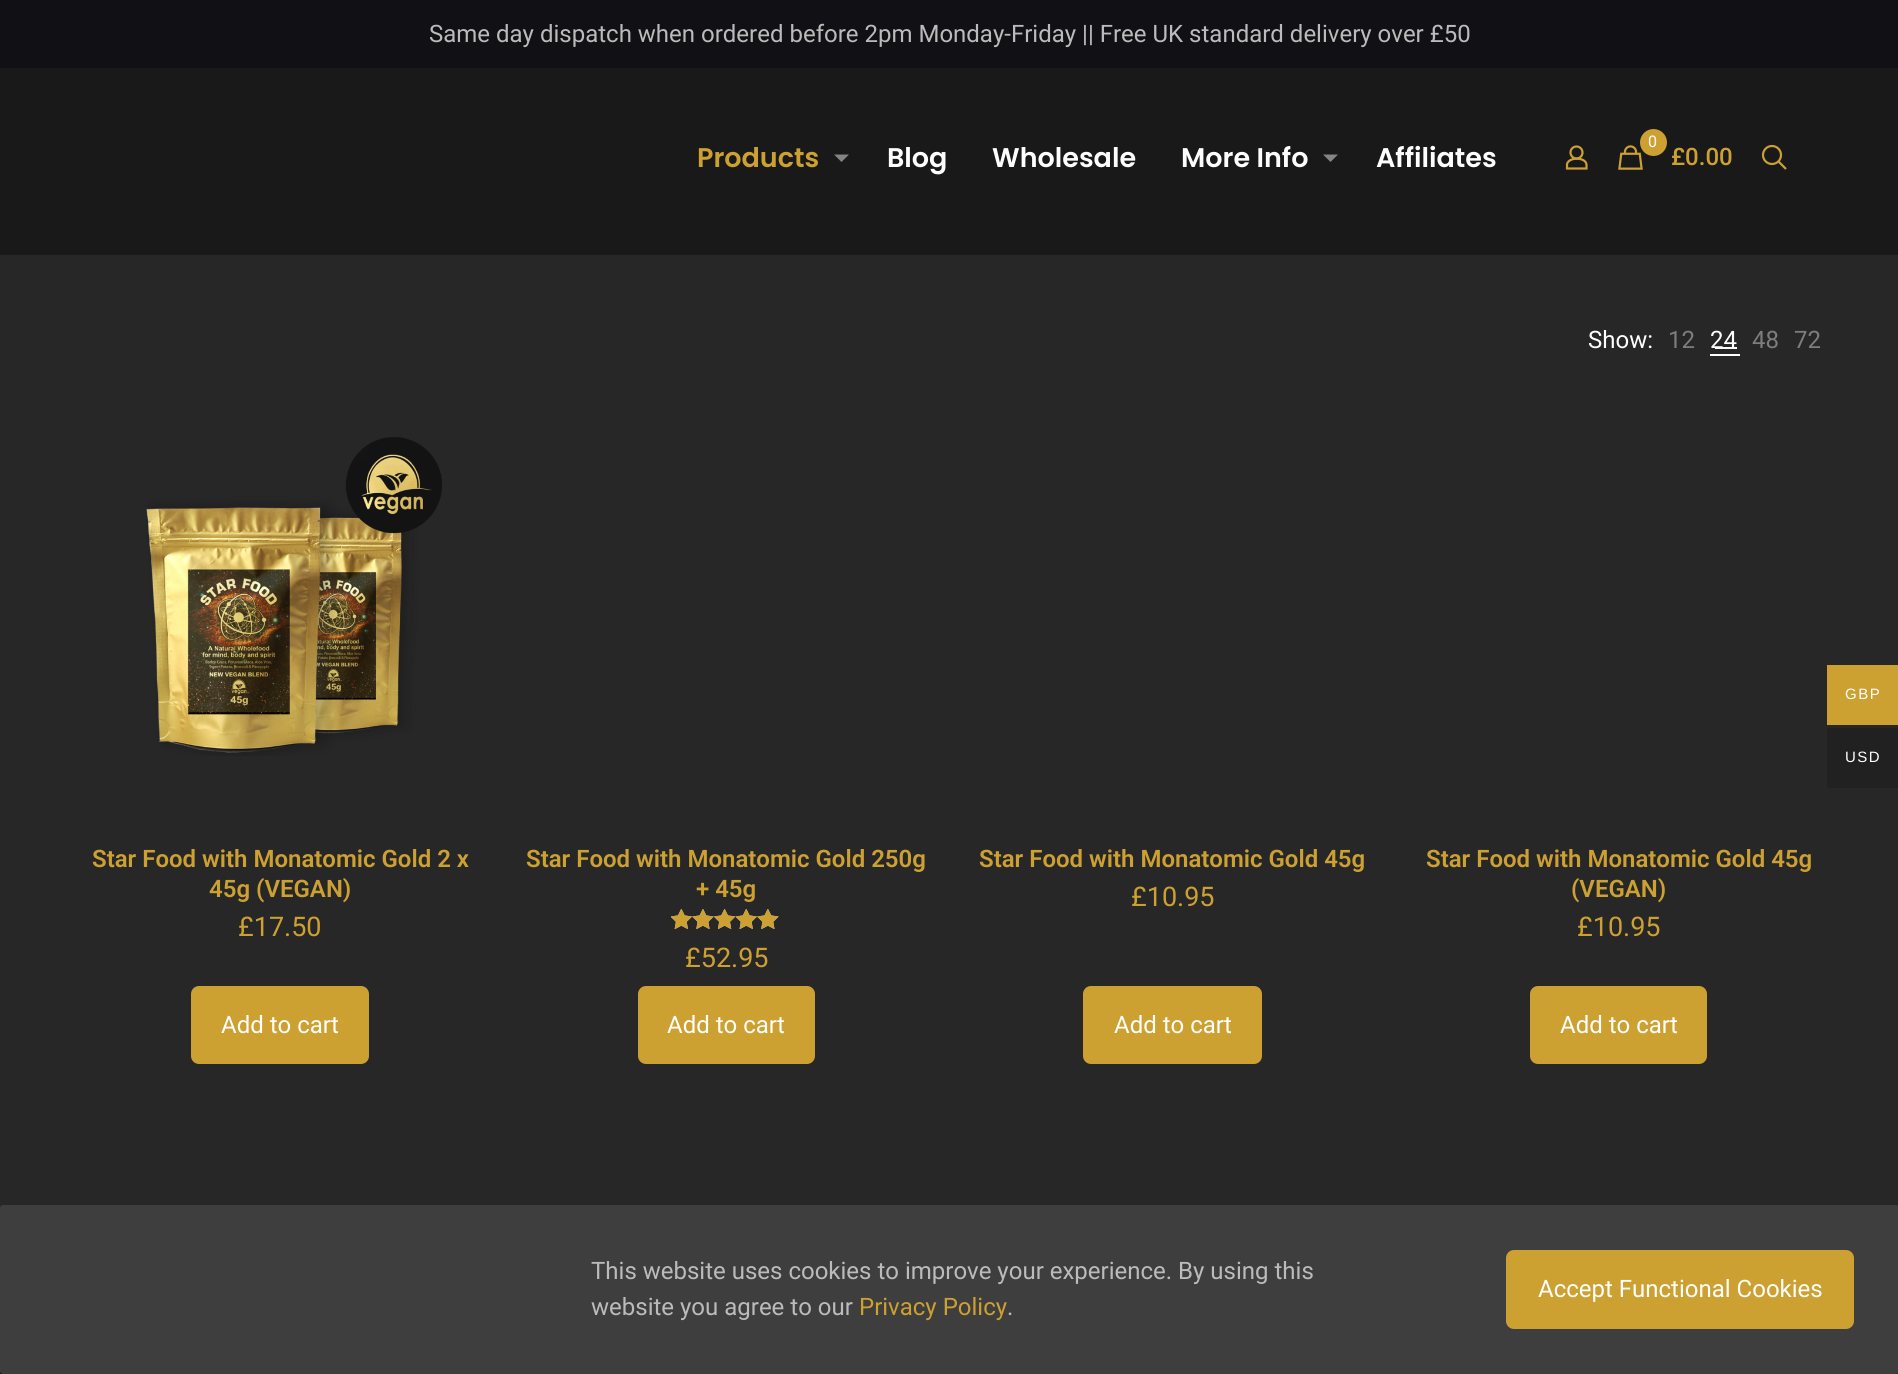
import math
import cairo


def use_color(cr, r, g, b):
  cr.set_source_rgb(r / 255, g / 255, b / 255)

def text(cr, x, y, s, family, size, color, bold=False, italic=False):
  cr.select_font_face(family, cairo.FONT_SLANT_ITALIC if italic else cairo.FONT_SLANT_NORMAL, cairo.FONT_WEIGHT_BOLD if bold else cairo.FONT_WEIGHT_NORMAL)
  cr.set_font_size(size)
  use_color(cr, *color)
  cr.move_to(x, y)
  cr.show_text(s)

def spaced_text(cr, x, y, s, letter, word):
  cr.move_to(x, y)
  for ch in s:
    cr.show_text(ch)
    cr.rel_move_to(letter + word * (ch == ' '), 0)

def box(cr, x, y, w, h, *color):
  use_color(cr, *color)
  cr.rectangle(x, y, w, h)
  cr.fill()

def round_rect(cr, x, y, w, h, r):
  cr.new_sub_path()
  for i, (u, v) in enumerate([(x + w - r, y + h - r), (x + r, y + h - r), (x + r, y + r), (x + w - r, y + r)]):
    cr.arc(u, v, r, i * math.pi / 2, (i + 1) * math.pi / 2)
  cr.close_path()

def picture(cr, path, x, y, w, h):
  cr.save()
  cr.set_source_surface(cairo.ImageSurface.create_from_png(path), x, y)
  cr.rectangle(x, y, w, h)
  cr.fill()
  cr.restore()

def draw(cr):
  use_color(cr, 39, 39, 39)
  cr.paint()
  box(cr, 0, 68, 1898, 187, 25, 25, 25)
  box(cr, 0, 0, 1898, 68, 16, 16, 21)
  use_color(cr, 132, 132, 132)
  cr.new_path()
  cr.move_to(834, 154.5)
  cr.line_to(849, 154.5)
  cr.line_to(841.5, 162)
  cr.close_path()
  cr.fill()
  cr.new_path()
  cr.move_to(1323, 154.5)
  cr.line_to(1338, 154.5)
  cr.line_to(1330.5, 162)
  cr.close_path()
  cr.fill()
  cr.arc(1576.5, 152.5, 6, 0, 2 * math.pi)
  use_color(cr, 205, 160, 50)
  cr.set_line_width(2.2)
  cr.stroke()
  cr.new_path()
  cr.move_to(1586.5, 165)
  cr.line_to(1586.5, 168.5)
  cr.line_to(1567, 168.5)
  cr.line_to(1567, 164)
  cr.curve_to(1569, 156.5, 1586.5, 157, 1586.5, 165)
  cr.close_path()
  cr.stroke()
  picture(cr, "img_01.png", 1618, 145, 25, 25)
  cr.arc(1653.5, 142.5, 13.5, 0, 2 * math.pi)
  cr.fill()
  cr.arc(1772, 155, 9, 0, 2 * math.pi)
  cr.stroke()
  cr.new_path()
  cr.move_to(1778.5, 161.5)
  cr.line_to(1786, 169)
  cr.stroke()
  box(cr, 1715, 347, 22, 2, 255, 255, 255)
  box(cr, 1710, 354, 30, 2, 255, 255, 255)
  picture(cr, "img_02.png", 146, 437, 296, 319)
  use_color(cr, 205, 160, 50)
  round_rect(cr, 191, 986, 178, 78, 8)
  cr.fill()
  picture(cr, "img_03.png", 671, 909, 108, 20)
  picture(cr, "img_04.png", 671, 909, 108, 20)
  round_rect(cr, 638, 986, 177, 78, 8)
  cr.fill()
  round_rect(cr, 1083, 986, 179, 78, 8)
  cr.fill()
  round_rect(cr, 1530, 986, 177, 78, 8)
  cr.fill()
  box(cr, 0, 1371, 1898, 3, 25, 25, 25)
  box(cr, 1827, 665, 71, 60, 205, 160, 50)
  box(cr, 1827, 728, 71, 60, 33, 33, 33)
  use_color(cr, 62, 62, 62)
  round_rect(cr, 0, 1205, 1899, 169, 3)
  cr.fill()
  use_color(cr, 205, 160, 50)
  round_rect(cr, 1506, 1250, 348, 79, 8)
  cr.fill()
  text(cr, 429, 42, "Same day dispatch when ordered before 2pm Monday-Friday || Free UK standard delivery over £50", "Roboto", 24, (187, 187, 187))
  text(cr, 697, 167, "Products", "Poppins SemiBold", 27, (205, 160, 50))
  text(cr, 887, 167, "Blog", "Poppins SemiBold", 27, (255, 255, 255))
  text(cr, 992, 167, "Wholesale", "Poppins SemiBold", 27, (255, 255, 255))
  text(cr, 1181, 167, "More Info", "Poppins SemiBold", 27, (255, 255, 255))
  text(cr, 1376, 167, "Affiliates", "Poppins SemiBold", 27, (255, 255, 255))
  text(cr, 1648, 147, "0", "Roboto", 16, (255, 255, 255))
  text(cr, 1671, 165, "£0.00", "Roboto Medium", 24, (205, 160, 50))
  text(cr, 1588, 348, "Show:", "Roboto", 24, (255, 255, 255))
  text(cr, 1668, 348, "12", "Roboto", 24, (125, 125, 125))
  text(cr, 1710, 348, "24", "Roboto", 24, (255, 255, 255))
  text(cr, 1752, 348, "48", "Roboto", 24, (125, 125, 125))
  text(cr, 1794, 348, "72", "Roboto", 24, (125, 125, 125))
  text(cr, 92, 867, "Star Food with Monatomic Gold 2 x", "Roboto SemiBold", 24, (205, 160, 50))
  text(cr, 209, 897, "45g (VEGAN)", "Roboto SemiBold", 24, (205, 160, 50))
  text(cr, 238, 936, "£17.50", "Roboto", 27, (205, 160, 50))
  text(cr, 221, 1033, "Add to cart", "Roboto", 24, (255, 255, 255))
  text(cr, 526, 867, "Star Food with Monatomic Gold 250g", "Roboto SemiBold", 24, (205, 160, 50))
  text(cr, 696, 897, "+ 45g", "Roboto SemiBold", 24, (205, 160, 50))
  text(cr, 685, 967, "£52.95", "Roboto", 27, (205, 160, 50))
  text(cr, 667, 1033, "Add to cart", "Roboto", 24, (255, 255, 255))
  text(cr, 979, 867, "Star Food with Monatomic Gold 45g", "Roboto SemiBold", 24, (205, 160, 50))
  text(cr, 1131, 906, "£10.95", "Roboto", 27, (205, 160, 50))
  text(cr, 1114, 1033, "Add to cart", "Roboto", 24, (255, 255, 255))
  text(cr, 1426, 867, "Star Food with Monatomic Gold 45g", "Roboto SemiBold", 24, (205, 160, 50))
  text(cr, 1571, 897, "(VEGAN)", "Roboto SemiBold", 24, (205, 160, 50))
  text(cr, 1577, 936, "£10.95", "Roboto", 27, (205, 160, 50))
  text(cr, 1560, 1033, "Add to cart", "Roboto", 24, (255, 255, 255))
  cr.select_font_face("Liberation Sans")
  cr.set_font_size(15)
  spaced_text(cr, 1845, 699, "GBP", 1.5, 0)
  spaced_text(cr, 1845, 762, "USD", 1.5, 0)
  text(cr, 591, 1279, "This website uses cookies to improve your experience. By using this", "Roboto", 24, (187, 187, 187))
  text(cr, 591, 1315, "website you agree to our", "Roboto", 24, (187, 187, 187))
  text(cr, 859, 1315, "Privacy Policy", "Roboto", 24, (205, 160, 50))
  text(cr, 1007, 1315, ".", "Roboto", 24, (187, 187, 187))
  text(cr, 1538, 1297, "Accept Functional Cookies", "Roboto", 24, (255, 255, 255))


surface = cairo.ImageSurface(cairo.FORMAT_RGB24, 1898, 1374)
cr = cairo.Context(surface)
options = cairo.FontOptions()
options.set_hint_metrics(cairo.HINT_METRICS_OFF)
options.set_hint_style(cairo.HINT_STYLE_NONE)
cr.set_font_options(options)
cr.set_miter_limit(4)
draw(cr)
surface.write_to_png("out.png")
